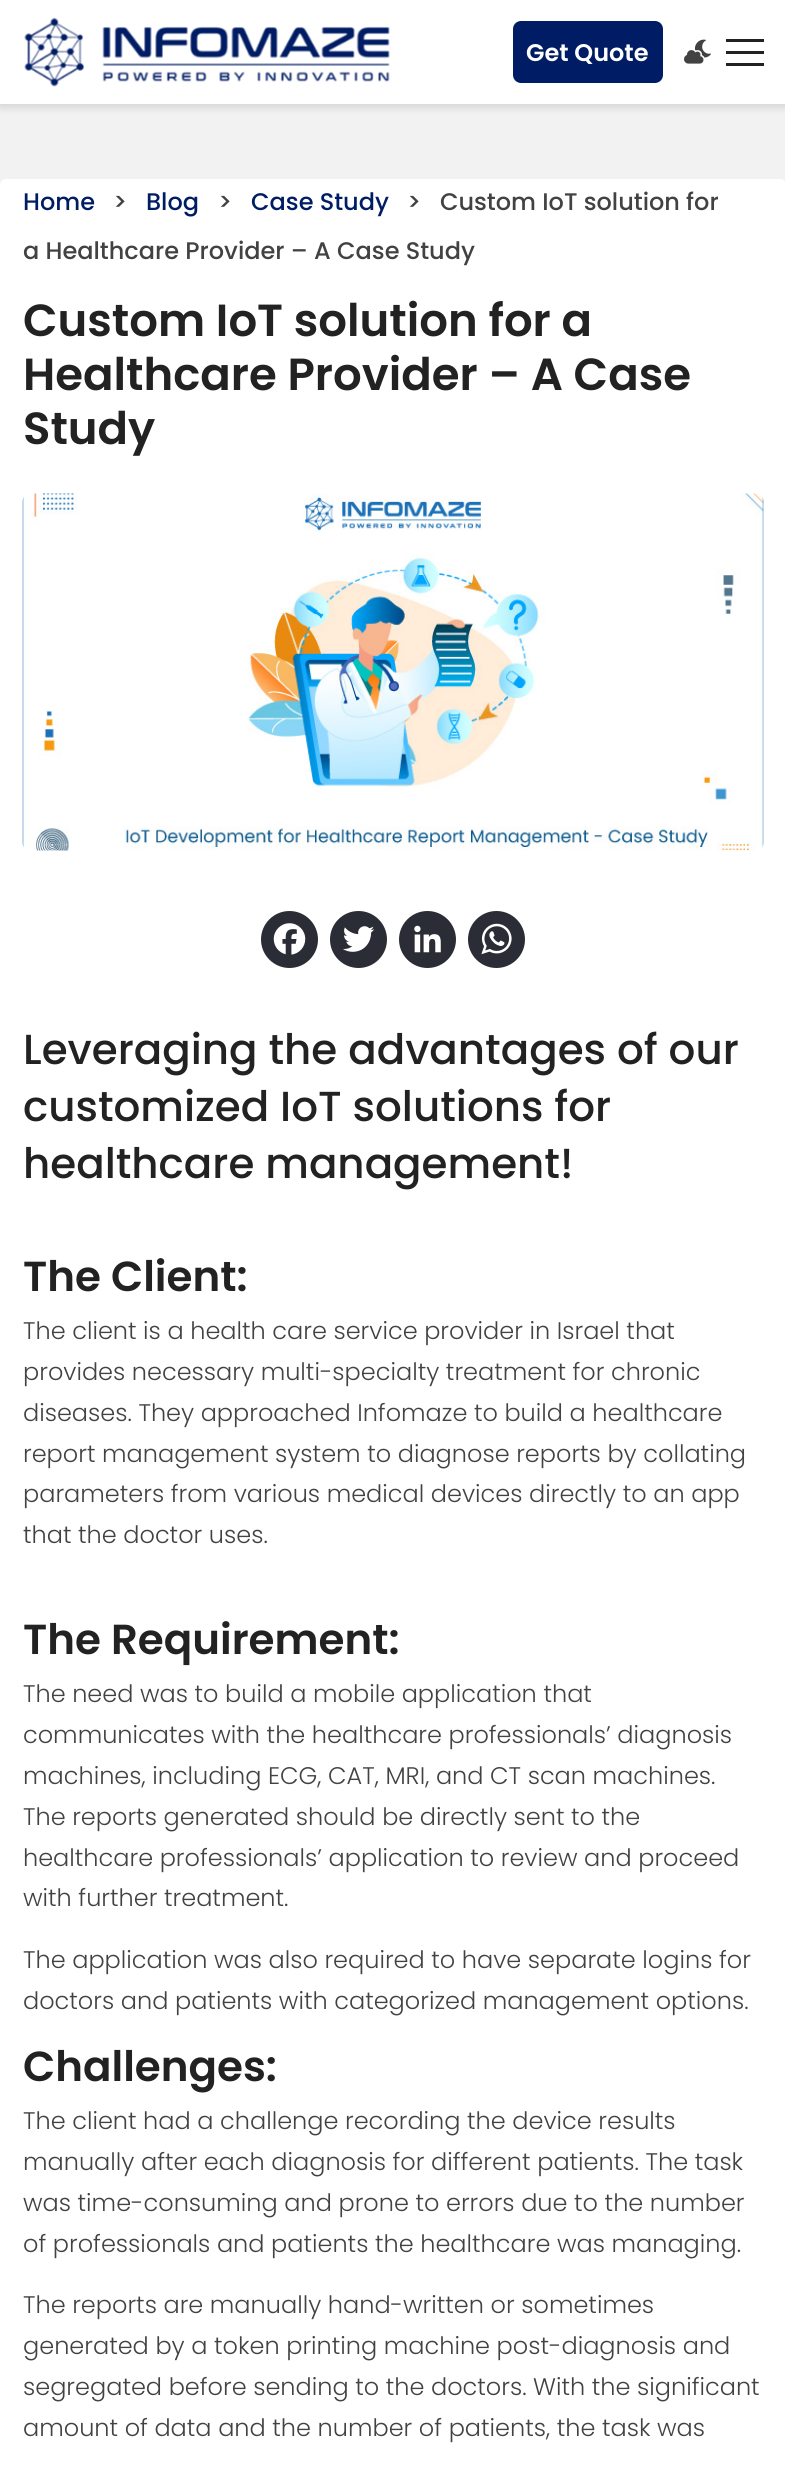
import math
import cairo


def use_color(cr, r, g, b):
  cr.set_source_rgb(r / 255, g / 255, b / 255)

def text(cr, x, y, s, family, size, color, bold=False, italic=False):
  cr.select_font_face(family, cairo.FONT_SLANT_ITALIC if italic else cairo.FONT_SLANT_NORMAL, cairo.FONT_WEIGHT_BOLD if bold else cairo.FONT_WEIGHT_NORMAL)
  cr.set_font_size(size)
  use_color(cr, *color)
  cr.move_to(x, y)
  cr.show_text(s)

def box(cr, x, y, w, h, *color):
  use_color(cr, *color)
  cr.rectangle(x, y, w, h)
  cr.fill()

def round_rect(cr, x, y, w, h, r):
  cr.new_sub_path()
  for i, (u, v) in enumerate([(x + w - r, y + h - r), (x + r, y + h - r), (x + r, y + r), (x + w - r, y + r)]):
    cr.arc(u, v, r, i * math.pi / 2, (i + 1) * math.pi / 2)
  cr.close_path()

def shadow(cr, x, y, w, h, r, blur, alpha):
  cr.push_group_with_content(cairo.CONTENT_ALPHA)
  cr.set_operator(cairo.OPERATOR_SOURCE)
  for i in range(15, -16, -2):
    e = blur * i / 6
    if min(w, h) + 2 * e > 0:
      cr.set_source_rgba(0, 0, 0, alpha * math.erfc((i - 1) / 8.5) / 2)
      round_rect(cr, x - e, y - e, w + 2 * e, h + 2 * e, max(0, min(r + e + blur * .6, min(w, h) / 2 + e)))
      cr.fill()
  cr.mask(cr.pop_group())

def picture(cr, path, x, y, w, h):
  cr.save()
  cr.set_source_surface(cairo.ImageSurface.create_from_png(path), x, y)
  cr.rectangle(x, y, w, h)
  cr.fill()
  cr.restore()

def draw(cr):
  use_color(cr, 242, 242, 242)
  cr.paint()
  use_color(cr, 0, 0, 0)
  shadow(cr, 0, 3, 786, 105, 0, 4.5, 0.12)
  box(cr, 0, 0, 785, 104, 255, 255, 255)
  box(cr, 0, 104, 785, 2, 218, 220, 224)
  picture(cr, "img_01.png", 24, 17, 366, 70)
  use_color(cr, 0, 28, 100)
  round_rect(cr, 514.5, 22.5, 147, 59, 6.5)
  cr.fill_preserve()
  cr.set_line_width(3)
  cr.stroke()
  picture(cr, "img_02.png", 684, 39, 27, 25)
  box(cr, 726, 51, 38, 3, 34, 34, 34)
  box(cr, 726, 39, 38, 3, 34, 34, 34)
  box(cr, 726, 63, 38, 3, 34, 34, 34)
  use_color(cr, 255, 255, 255)
  round_rect(cr, 0, 179, 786, 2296, 6)
  cr.fill()
  picture(cr, "img_03.png", 22, 493, 742, 358)
  use_color(cr, 42, 45, 53)
  cr.arc(289.5, 939.5, 28.5, 0, 2 * math.pi)
  cr.fill()
  picture(cr, "img_04.png", 273, 923, 33, 32)
  cr.arc(358.5, 939.5, 28.5, 0, 2 * math.pi)
  cr.fill()
  picture(cr, "img_05.png", 343, 926, 32, 26)
  cr.arc(427.5, 939.5, 28.5, 0, 2 * math.pi)
  cr.fill()
  picture(cr, "img_06.png", 414, 925, 27, 28)
  cr.arc(496.5, 939.5, 28.5, 0, 2 * math.pi)
  cr.fill()
  picture(cr, "img_07.png", 481, 923, 31, 32)
  text(cr, 526, 61, "Get Quote", "Poppins SemiBold", 24, (255, 255, 255))
  text(cr, 23, 210, "Home", "Poppins Medium", 24, (0, 28, 100))
  text(cr, 113, 210, ">", "Poppins Medium", 24, (66, 66, 66))
  text(cr, 146, 210, "Blog", "Poppins Medium", 24, (0, 28, 100))
  text(cr, 218, 210, ">", "Poppins Medium", 24, (66, 66, 66))
  text(cr, 251, 210, "Case Study", "Poppins Medium", 24, (0, 28, 100))
  text(cr, 407, 210, ">   Custom IoT solution for", "Poppins Medium", 24, (66, 66, 66))
  text(cr, 23, 259, "a Healthcare Provider – A Case Study", "Poppins Medium", 24, (66, 66, 66))
  text(cr, 23, 336, "Custom IoT solution for a", "Poppins SemiBold", 45, (34, 34, 34))
  text(cr, 23, 390, "Healthcare Provider – A Case", "Poppins SemiBold", 45, (34, 34, 34))
  text(cr, 23, 444, "Study", "Poppins SemiBold", 45, (34, 34, 34))
  text(cr, 23, 1064, "Leveraging the advantages of our", "Poppins Medium", 42, (34, 34, 34))
  text(cr, 23, 1121, "customized IoT solutions for", "Poppins Medium", 42, (34, 34, 34))
  text(cr, 23, 1178, "healthcare management!", "Poppins Medium", 42, (34, 34, 34))
  text(cr, 23, 1291, "The Client:", "Poppins SemiBold", 42, (34, 34, 34))
  text(cr, 23, 1339, "The client is a health care service provider in Israel that", "Poppins Light", 24, (66, 66, 66))
  text(cr, 23, 1380, "provides necessary multi-specialty treatment for chronic", "Poppins Light", 24, (66, 66, 66))
  text(cr, 23, 1421, "diseases. They approached Infomaze to build a healthcare", "Poppins Light", 24, (66, 66, 66))
  text(cr, 23, 1462, "report management system to diagnose reports by collating", "Poppins Light", 24, (66, 66, 66))
  text(cr, 23, 1502, "parameters from various medical devices directly to an app", "Poppins Light", 24, (66, 66, 66))
  text(cr, 23, 1543, "that the doctor uses.", "Poppins Light", 24, (66, 66, 66))
  text(cr, 23, 1654, "The Requirement:", "Poppins SemiBold", 42, (34, 34, 34))
  text(cr, 23, 1702, "The need was to build a mobile application that", "Poppins Light", 24, (66, 66, 66))
  text(cr, 23, 1743, "communicates with the healthcare professionals’ diagnosis", "Poppins Light", 24, (66, 66, 66))
  text(cr, 23, 1784, "machines, including ECG, CAT, MRI, and CT scan machines.", "Poppins Light", 24, (66, 66, 66))
  text(cr, 23, 1825, "The reports generated should be directly sent to the", "Poppins Light", 24, (66, 66, 66))
  text(cr, 23, 1866, "healthcare professionals’ application to review and proceed", "Poppins Light", 24, (66, 66, 66))
  text(cr, 23, 1906, "with further treatment.", "Poppins Light", 24, (66, 66, 66))
  text(cr, 23, 1968, "The application was also required to have separate logins for", "Poppins Light", 24, (66, 66, 66))
  text(cr, 23, 2009, "doctors and patients with categorized management options.", "Poppins Light", 24, (66, 66, 66))
  text(cr, 23, 2081, "Challenges:", "Poppins SemiBold", 42, (34, 34, 34))
  text(cr, 23, 2129, "The client had a challenge recording the device results", "Poppins Light", 24, (66, 66, 66))
  text(cr, 23, 2170, "manually after each diagnosis for different patients. The task", "Poppins Light", 24, (66, 66, 66))
  text(cr, 23, 2211, "was time-consuming and prone to errors due to the number", "Poppins Light", 24, (66, 66, 66))
  text(cr, 23, 2252, "of professionals and patients the healthcare was managing.", "Poppins Light", 24, (66, 66, 66))
  text(cr, 23, 2313, "The reports are manually hand-written or sometimes", "Poppins Light", 24, (66, 66, 66))
  text(cr, 23, 2354, "generated by a token printing machine post-diagnosis and", "Poppins Light", 24, (66, 66, 66))
  text(cr, 23, 2395, "segregated before sending to the doctors. With the significant", "Poppins Light", 24, (66, 66, 66))
  text(cr, 23, 2436, "amount of data and the number of patients, the task was", "Poppins Light", 24, (66, 66, 66))


surface = cairo.ImageSurface(cairo.FORMAT_RGB24, 785, 2469)
cr = cairo.Context(surface)
options = cairo.FontOptions()
options.set_hint_metrics(cairo.HINT_METRICS_OFF)
options.set_hint_style(cairo.HINT_STYLE_NONE)
cr.set_font_options(options)
cr.set_miter_limit(4)
draw(cr)
surface.write_to_png("out.png")
